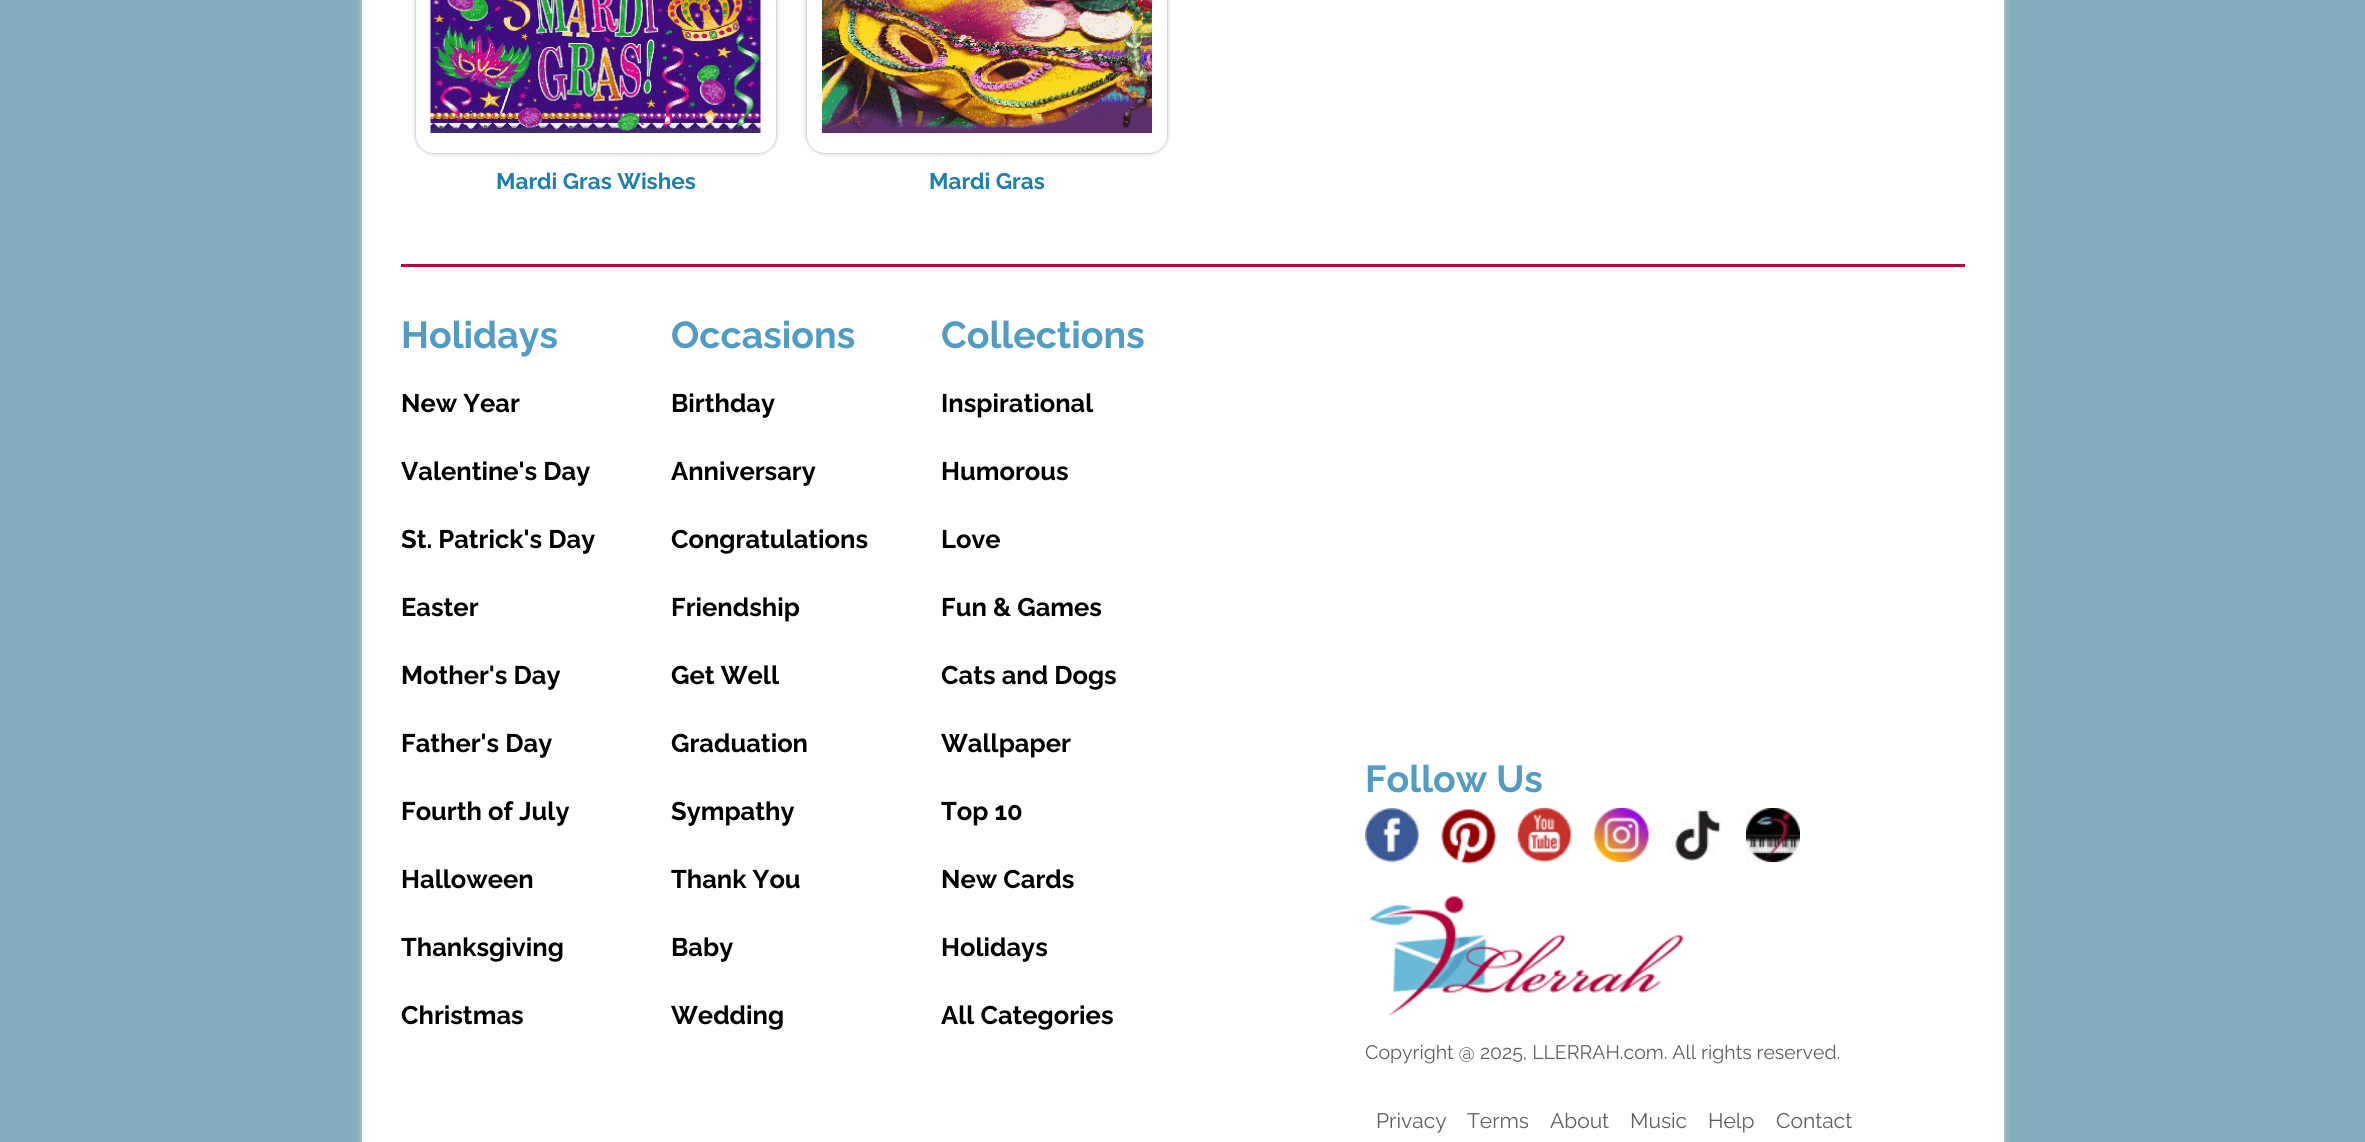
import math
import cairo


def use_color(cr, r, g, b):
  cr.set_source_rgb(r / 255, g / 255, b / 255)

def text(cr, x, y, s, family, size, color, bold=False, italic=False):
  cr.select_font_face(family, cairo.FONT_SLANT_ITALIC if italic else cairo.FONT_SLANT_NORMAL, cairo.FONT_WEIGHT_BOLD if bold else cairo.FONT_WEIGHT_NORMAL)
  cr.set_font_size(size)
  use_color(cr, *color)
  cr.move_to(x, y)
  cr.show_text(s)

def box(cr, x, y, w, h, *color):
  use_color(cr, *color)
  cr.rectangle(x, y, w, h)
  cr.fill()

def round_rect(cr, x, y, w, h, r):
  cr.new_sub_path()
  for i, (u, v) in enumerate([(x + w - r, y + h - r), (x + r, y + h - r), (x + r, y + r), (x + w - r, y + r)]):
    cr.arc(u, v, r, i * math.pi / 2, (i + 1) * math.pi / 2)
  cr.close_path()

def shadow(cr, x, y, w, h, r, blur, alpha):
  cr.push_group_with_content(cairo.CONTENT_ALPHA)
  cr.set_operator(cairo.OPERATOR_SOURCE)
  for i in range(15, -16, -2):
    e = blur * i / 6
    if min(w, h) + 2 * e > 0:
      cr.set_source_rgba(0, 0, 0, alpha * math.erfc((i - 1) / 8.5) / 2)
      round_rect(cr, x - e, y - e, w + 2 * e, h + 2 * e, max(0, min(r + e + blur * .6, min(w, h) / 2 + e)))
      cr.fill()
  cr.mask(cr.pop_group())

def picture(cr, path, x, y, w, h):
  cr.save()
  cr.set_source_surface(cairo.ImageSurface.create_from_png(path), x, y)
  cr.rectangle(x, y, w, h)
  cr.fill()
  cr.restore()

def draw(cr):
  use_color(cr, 131, 174, 190)
  cr.paint()
  use_color(cr, 208, 210, 208)
  shadow(cr, 362, -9, 1642, 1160, 0, 3, 1)
  box(cr, 362, 0, 1642, 1142, 255, 255, 255)
  use_color(cr, 161, 161, 161)
  shadow(cr, 416, -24, 360, 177, 18, 2, 1)
  use_color(cr, 255, 255, 255)
  round_rect(cr, 416, -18, 360, 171, 18)
  cr.fill()
  picture(cr, "img_01.png", 430, 0, 331, 133)
  use_color(cr, 161, 161, 161)
  shadow(cr, 807, -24, 360, 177, 18, 2, 1)
  use_color(cr, 255, 255, 255)
  round_rect(cr, 807, -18, 360, 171, 18)
  cr.fill()
  picture(cr, "img_02.png", 822, 0, 330, 133)
  box(cr, 401, 264, 1564, 3, 188, 2, 63)
  picture(cr, "img_03.png", 1365, 808, 54, 54)
  picture(cr, "img_04.png", 1441, 809, 55, 55)
  picture(cr, "img_05.png", 1516, 808, 56, 54)
  picture(cr, "img_06.png", 1594, 808, 55, 54)
  picture(cr, "img_07.png", 1669, 808, 55, 54)
  picture(cr, "img_08.png", 1746, 808, 54, 54)
  picture(cr, "img_09.png", 1369, 895, 315, 122)
  text(cr, 496, 189, "Mardi Gras Wishes", "Raleway", 22.5, (28, 127, 174), bold=True)
  text(cr, 929, 189, "Mardi Gras", "Raleway", 22.5, (28, 127, 174), bold=True)
  text(cr, 401, 348, "Holidays", "Raleway", 37.5, (81, 156, 195), bold=True)
  text(cr, 401, 412, "New Year", "Raleway", 25.5, (0, 0, 0), bold=True)
  text(cr, 401, 480, "Valentine's Day", "Raleway", 25.5, (0, 0, 0), bold=True)
  text(cr, 401, 548, "St. Patrick's Day", "Raleway", 25.5, (0, 0, 0), bold=True)
  text(cr, 401, 616, "Easter", "Raleway", 25.5, (0, 0, 0), bold=True)
  text(cr, 401, 684, "Mother's Day", "Raleway", 25.5, (0, 0, 0), bold=True)
  text(cr, 401, 752, "Father's Day", "Raleway", 25.5, (0, 0, 0), bold=True)
  text(cr, 401, 820, "Fourth of July", "Raleway", 25.5, (0, 0, 0), bold=True)
  text(cr, 401, 888, "Halloween", "Raleway", 25.5, (0, 0, 0), bold=True)
  text(cr, 401, 956, "Thanksgiving", "Raleway", 25.5, (0, 0, 0), bold=True)
  text(cr, 401, 1024, "Christmas", "Raleway", 25.5, (0, 0, 0), bold=True)
  text(cr, 671, 348, "Occasions", "Raleway", 37.5, (81, 156, 195), bold=True)
  text(cr, 671, 412, "Birthday", "Raleway", 25.5, (0, 0, 0), bold=True)
  text(cr, 671, 480, "Anniversary", "Raleway", 25.5, (0, 0, 0), bold=True)
  text(cr, 671, 548, "Congratulations", "Raleway", 25.5, (0, 0, 0), bold=True)
  text(cr, 671, 616, "Friendship", "Raleway", 25.5, (0, 0, 0), bold=True)
  text(cr, 671, 684, "Get Well", "Raleway", 25.5, (0, 0, 0), bold=True)
  text(cr, 671, 752, "Graduation", "Raleway", 25.5, (0, 0, 0), bold=True)
  text(cr, 671, 820, "Sympathy", "Raleway", 25.5, (0, 0, 0), bold=True)
  text(cr, 671, 888, "Thank You", "Raleway", 25.5, (0, 0, 0), bold=True)
  text(cr, 671, 956, "Baby", "Raleway", 25.5, (0, 0, 0), bold=True)
  text(cr, 671, 1024, "Wedding", "Raleway", 25.5, (0, 0, 0), bold=True)
  text(cr, 941, 348, "Collections", "Raleway", 37.5, (81, 156, 195), bold=True)
  text(cr, 941, 412, "Inspirational", "Raleway", 25.5, (0, 0, 0), bold=True)
  text(cr, 941, 480, "Humorous", "Raleway", 25.5, (0, 0, 0), bold=True)
  text(cr, 941, 548, "Love", "Raleway", 25.5, (0, 0, 0), bold=True)
  text(cr, 941, 616, "Fun & Games", "Raleway", 25.5, (0, 0, 0), bold=True)
  text(cr, 941, 684, "Cats and Dogs", "Raleway", 25.5, (0, 0, 0), bold=True)
  text(cr, 941, 752, "Wallpaper", "Raleway", 25.5, (0, 0, 0), bold=True)
  text(cr, 941, 820, "Top 10", "Raleway", 25.5, (0, 0, 0), bold=True)
  text(cr, 941, 888, "New Cards", "Raleway", 25.5, (0, 0, 0), bold=True)
  text(cr, 941, 956, "Holidays", "Raleway", 25.5, (0, 0, 0), bold=True)
  text(cr, 941, 1024, "All Categories", "Raleway", 25.5, (0, 0, 0), bold=True)
  text(cr, 1365, 792, "Follow Us", "Raleway", 37.5, (81, 156, 195), bold=True)
  text(cr, 1365, 1059, "Copyright @ 2025, LLERRAH.com. All rights reserved.", "Raleway", 19.5, (95, 94, 94))
  text(cr, 1376, 1128, "Privacy", "Raleway", 21, (95, 94, 94))
  text(cr, 1467, 1128, "Terms", "Raleway", 21, (95, 94, 94))
  text(cr, 1550, 1128, "About", "Raleway", 21, (95, 94, 94))
  text(cr, 1630, 1128, "Music", "Raleway", 21, (95, 94, 94))
  text(cr, 1708, 1128, "Help", "Raleway", 21, (95, 94, 94))
  text(cr, 1776, 1128, "Contact", "Raleway", 21, (95, 94, 94))


surface = cairo.ImageSurface(cairo.FORMAT_RGB24, 2365, 1142)
cr = cairo.Context(surface)
options = cairo.FontOptions()
options.set_hint_metrics(cairo.HINT_METRICS_OFF)
options.set_hint_style(cairo.HINT_STYLE_NONE)
cr.set_font_options(options)
cr.set_miter_limit(4)
draw(cr)
surface.write_to_png("out.png")
